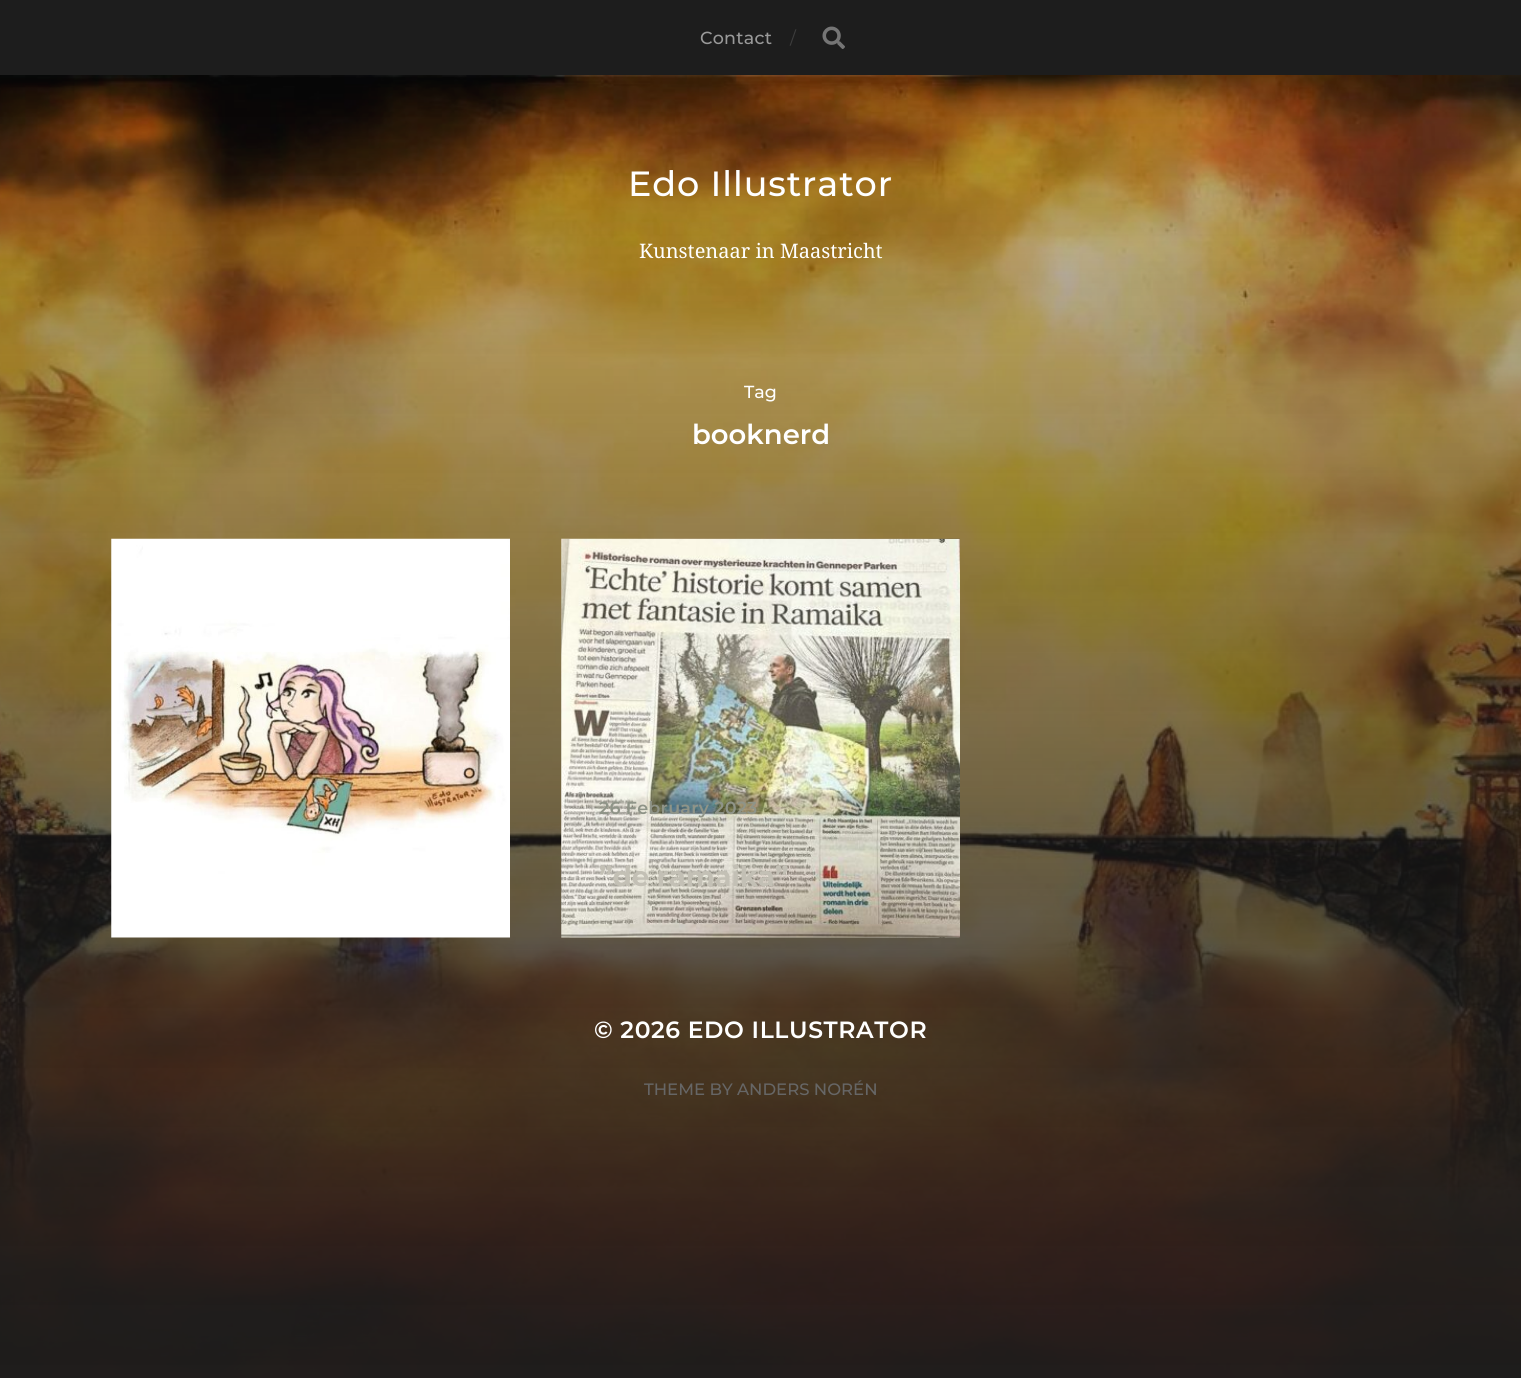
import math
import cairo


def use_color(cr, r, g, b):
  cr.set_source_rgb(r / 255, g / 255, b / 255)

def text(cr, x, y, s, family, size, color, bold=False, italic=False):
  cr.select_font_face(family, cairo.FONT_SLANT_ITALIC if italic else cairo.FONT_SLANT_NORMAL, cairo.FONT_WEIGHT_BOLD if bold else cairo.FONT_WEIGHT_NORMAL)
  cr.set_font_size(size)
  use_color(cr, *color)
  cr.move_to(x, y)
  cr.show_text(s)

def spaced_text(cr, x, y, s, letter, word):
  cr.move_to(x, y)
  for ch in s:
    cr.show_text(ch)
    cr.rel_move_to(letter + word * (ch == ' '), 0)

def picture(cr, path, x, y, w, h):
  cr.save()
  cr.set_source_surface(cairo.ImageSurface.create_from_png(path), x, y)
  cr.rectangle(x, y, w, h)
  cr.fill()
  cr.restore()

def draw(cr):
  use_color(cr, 29, 29, 29)
  cr.paint()
  picture(cr, "img_01.png", 822, 26, 23, 23)
  picture(cr, "img_02.png", 0, 75, 1521, 1303)
  picture(cr, "img_03.png", 111, 538, 399, 400)
  picture(cr, "img_04.png", 561, 538, 399, 400)
  cr.select_font_face("Montserrat Medium")
  cr.set_font_size(17.5)
  use_color(cr, 153, 153, 153)
  spaced_text(cr, 700, 44, "Contact", 0.25, 0)
  text(cr, 790, 44, "/", "Montserrat", 17.5, (61, 61, 61))
  cr.select_font_face("Montserrat Medium")
  cr.set_font_size(35)
  use_color(cr, 255, 255, 255)
  spaced_text(cr, 628, 196, "Edo Illustrator", 0.9, 0)
  text(cr, 639, 258, "Kunstenaar in Maastricht", "Droid Serif", 20, (255, 255, 255))
  text(cr, 744, 398, "Tag", "Montserrat Medium", 17.5, (255, 255, 255))
  text(cr, 692, 444, "booknerd", "Montserrat SemiBold", 27.5, (255, 255, 255))
  cr.set_font_size(17.5)
  use_color(cr, 143, 148, 136)
  spaced_text(cr, 599, 814, "26 February 2023", 0.25, 0)
  text(cr, 599, 886, "”de ramaika”", "Montserrat", 27.5, (195, 192, 181), bold=True)
  cr.select_font_face("Montserrat SemiBold")
  cr.set_font_size(23.5)
  use_color(cr, 255, 255, 255)
  spaced_text(cr, 594, 1038, "© 2026 EDO ILLUSTRATOR", 0.6, 0)
  text(cr, 644, 1095, "THEME BY ANDERS NORÉN", "Montserrat Medium", 16.5, (102, 102, 102))


surface = cairo.ImageSurface(cairo.FORMAT_RGB24, 1521, 1378)
cr = cairo.Context(surface)
options = cairo.FontOptions()
options.set_hint_metrics(cairo.HINT_METRICS_OFF)
options.set_hint_style(cairo.HINT_STYLE_NONE)
cr.set_font_options(options)
cr.set_miter_limit(4)
draw(cr)
surface.write_to_png("out.png")
